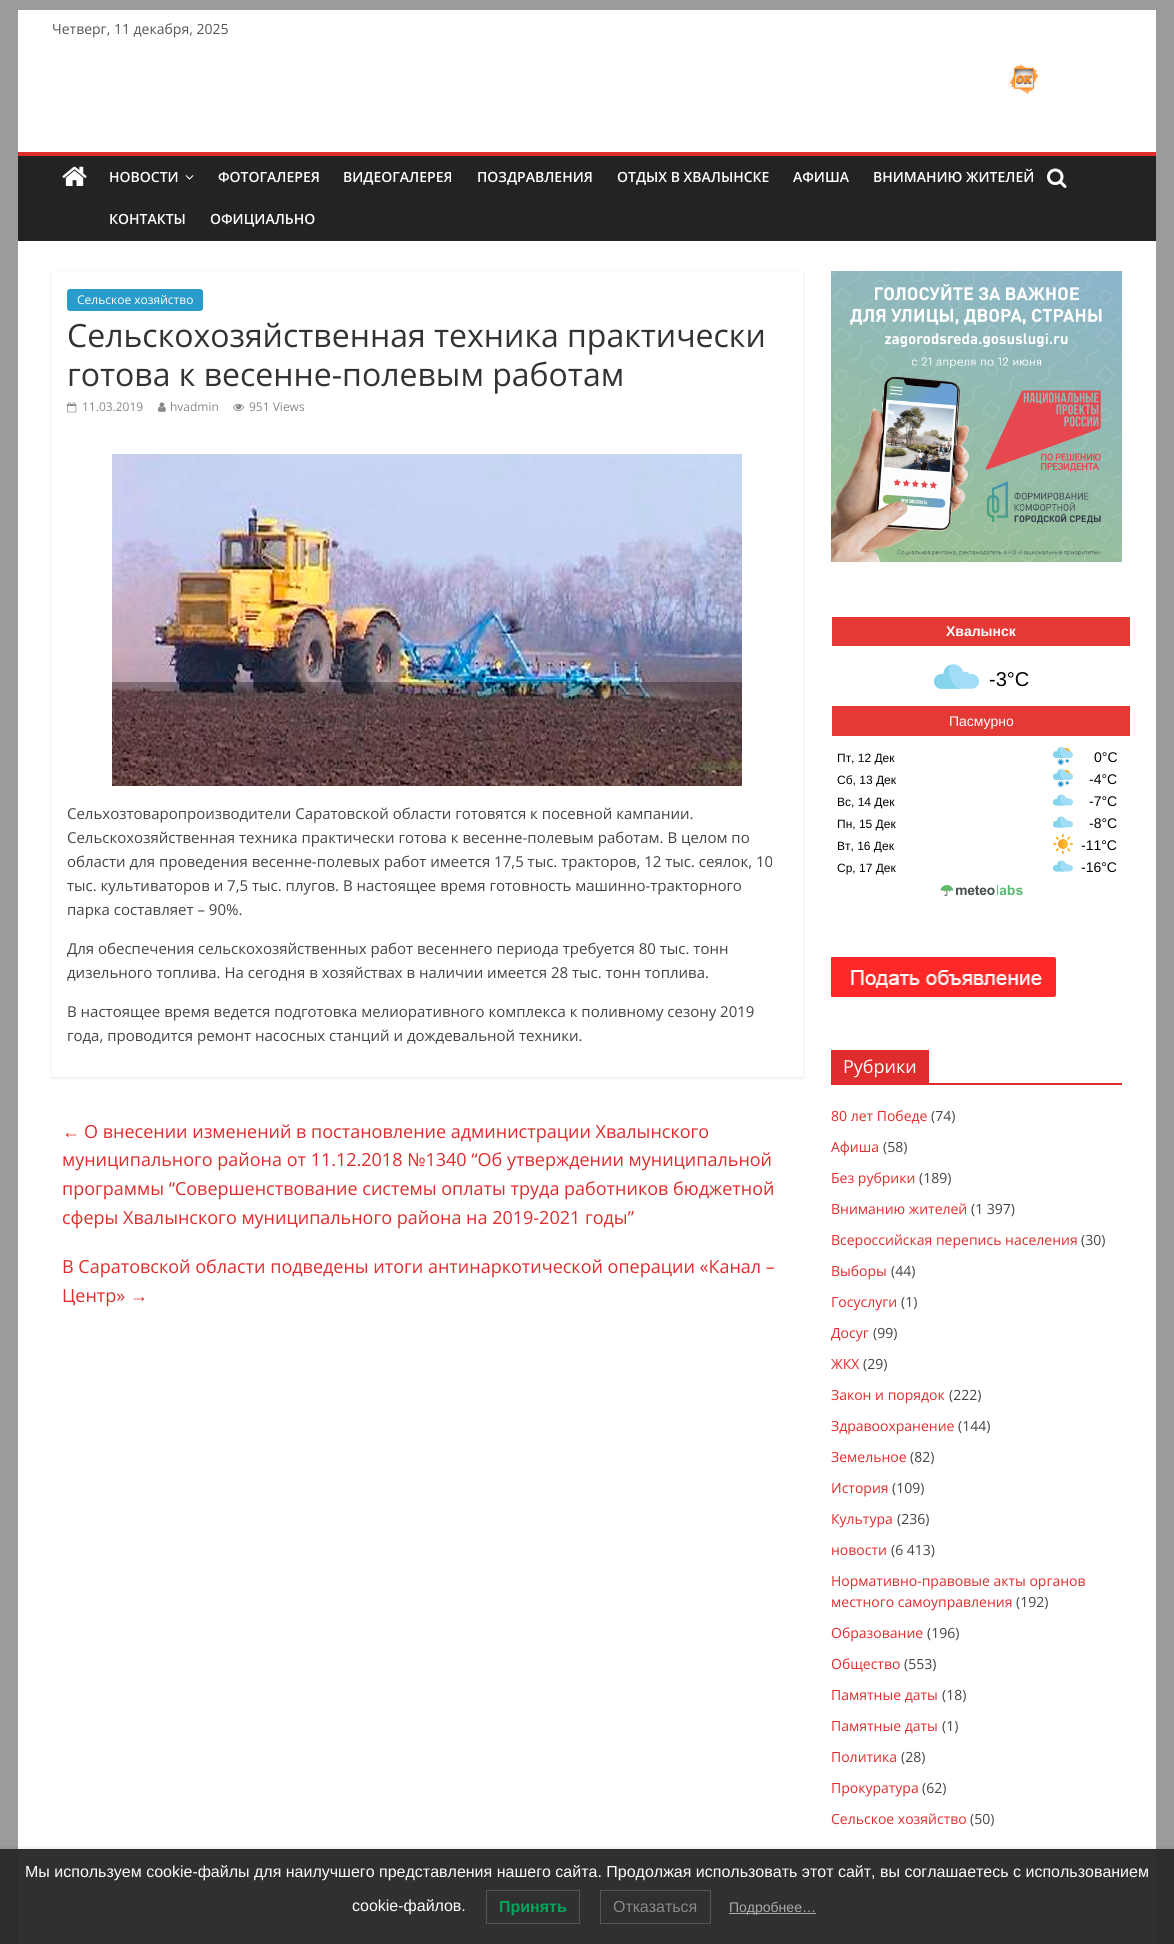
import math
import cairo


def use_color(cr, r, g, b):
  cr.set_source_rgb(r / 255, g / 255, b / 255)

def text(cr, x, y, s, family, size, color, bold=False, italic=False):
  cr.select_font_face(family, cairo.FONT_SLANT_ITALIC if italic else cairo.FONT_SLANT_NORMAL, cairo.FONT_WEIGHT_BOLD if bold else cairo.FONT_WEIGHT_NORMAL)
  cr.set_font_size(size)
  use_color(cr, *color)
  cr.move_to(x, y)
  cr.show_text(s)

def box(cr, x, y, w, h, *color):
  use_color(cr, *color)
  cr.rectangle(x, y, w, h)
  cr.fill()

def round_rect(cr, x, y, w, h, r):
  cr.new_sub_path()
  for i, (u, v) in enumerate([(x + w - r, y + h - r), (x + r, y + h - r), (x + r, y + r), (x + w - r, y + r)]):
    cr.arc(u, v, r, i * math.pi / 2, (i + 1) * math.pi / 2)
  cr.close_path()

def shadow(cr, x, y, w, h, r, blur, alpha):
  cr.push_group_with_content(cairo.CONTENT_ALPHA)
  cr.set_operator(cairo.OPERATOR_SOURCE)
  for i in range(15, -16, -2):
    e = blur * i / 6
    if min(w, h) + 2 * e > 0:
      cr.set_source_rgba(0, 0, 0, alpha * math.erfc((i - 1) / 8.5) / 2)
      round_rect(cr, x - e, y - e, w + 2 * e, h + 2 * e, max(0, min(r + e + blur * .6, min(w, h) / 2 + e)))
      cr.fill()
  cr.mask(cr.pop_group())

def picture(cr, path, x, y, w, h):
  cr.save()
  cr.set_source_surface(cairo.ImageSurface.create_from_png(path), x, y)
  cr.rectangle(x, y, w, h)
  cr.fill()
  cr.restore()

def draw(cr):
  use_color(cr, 155, 155, 155)
  cr.paint()
  box(cr, 18, 10, 1138, 142, 255, 255, 255)
  picture(cr, "img_01.png", 1009, 64, 30, 30)
  box(cr, 18, 156, 1138, 85, 35, 35, 35)
  box(cr, 18, 152, 1138, 4, 224, 44, 44)
  picture(cr, "img_02.png", 62, 166, 25, 20)
  picture(cr, "img_03.png", 185, 175, 9, 5)
  picture(cr, "img_04.png", 1047, 168, 20, 20)
  box(cr, 18, 241, 1138, 1703, 255, 255, 255)
  cr.save()
  cr.set_fill_rule(cairo.FILL_RULE_EVEN_ODD)
  cr.new_path()
  cr.move_to(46, 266)
  cr.line_to(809, 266)
  cr.line_to(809, 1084)
  cr.line_to(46, 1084)
  cr.close_path()
  cr.move_to(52, 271)
  cr.line_to(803, 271)
  cr.line_to(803, 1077)
  cr.line_to(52, 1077)
  cr.close_path()
  cr.clip()
  use_color(cr, 0, 0, 0)
  shadow(cr, 52, 272, 751, 806, 0, 1.5, 0.1)
  cr.restore()
  use_color(cr, 40, 157, 204)
  round_rect(cr, 67, 289, 136, 22, 3)
  cr.fill()
  picture(cr, "img_05.png", 67, 402, 10, 11)
  picture(cr, "img_06.png", 158, 402, 8, 10)
  picture(cr, "img_07.png", 233, 403, 11, 8)
  picture(cr, "img_08.png", 112, 454, 630, 332)
  picture(cr, "img_09.png", 831, 271, 291, 291)
  box(cr, 832, 617, 298, 29, 229, 57, 53)
  picture(cr, "img_10.png", 934, 664, 45, 25)
  box(cr, 832, 706, 298, 30, 229, 57, 53)
  picture(cr, "img_11.png", 1053, 747, 20, 18)
  picture(cr, "img_11.png", 1053, 769, 20, 18)
  picture(cr, "img_12.png", 1053, 794, 20, 12)
  picture(cr, "img_12.png", 1053, 816, 20, 12)
  picture(cr, "img_13.png", 1053, 834, 20, 20)
  picture(cr, "img_12.png", 1053, 860, 20, 12)
  picture(cr, "img_14.png", 940, 885, 83, 11)
  picture(cr, "img_15.png", 831, 957, 225, 40)
  box(cr, 831, 1083, 291, 2, 224, 44, 44)
  box(cr, 831, 1050, 98, 33, 224, 44, 44)
  cr.save()
  cr.rectangle(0, 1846, 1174, 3)
  cr.clip()
  use_color(cr, 0, 0, 0)
  shadow(cr, 0, 1849, 1174, 95, 0, 4, 0.1)
  cr.restore()
  cr.set_source_rgba(0.169, 0.169, 0.169, 0.97)
  cr.rectangle(0, 1850, 1174, 94)
  cr.fill()
  box(cr, 0, 1849, 1174, 1, 43, 43, 43)
  cr.rectangle(486.5, 1890.5, 93, 33)
  use_color(cr, 85, 85, 85)
  cr.set_line_width(1)
  cr.stroke()
  cr.rectangle(600.5, 1890.5, 110, 33)
  cr.stroke()
  box(cr, 729, 1913, 87, 1, 170, 170, 170)
  text(cr, 52, 34, "Четверг, 11 декабря, 2025", "Open Sans", 14, (85, 85, 85))
  text(cr, 109, 182, "НОВОСТИ", "Open Sans SemiBold", 14, (255, 255, 255))
  text(cr, 218, 182, "ФОТОГАЛЕРЕЯ", "Open Sans SemiBold", 14, (255, 255, 255))
  text(cr, 343, 182, "ВИДЕОГАЛЕРЕЯ", "Open Sans SemiBold", 14, (255, 255, 255))
  text(cr, 477, 182, "ПОЗДРАВЛЕНИЯ", "Open Sans SemiBold", 14, (255, 255, 255))
  text(cr, 617, 182, "ОТДЫХ В ХВАЛЫНСКЕ", "Open Sans SemiBold", 14, (255, 255, 255))
  text(cr, 793, 182, "АФИША", "Open Sans SemiBold", 14, (255, 255, 255))
  text(cr, 873, 182, "ВНИМАНИЮ ЖИТЕЛЕЙ", "Open Sans SemiBold", 14, (255, 255, 255))
  text(cr, 109, 224, "КОНТАКТЫ", "Open Sans SemiBold", 14, (255, 255, 255))
  text(cr, 210, 224, "ОФИЦИАЛЬНО", "Open Sans SemiBold", 14, (255, 255, 255))
  text(cr, 77, 304, "Сельское хозяйство", "Open Sans", 12, (255, 255, 255))
  text(cr, 67, 347, "Сельскохозяйственная техника практически", "Open Sans", 32, (51, 51, 51))
  text(cr, 67, 386, "готова к весенне-полевым работам", "Open Sans", 32, (51, 51, 51))
  text(cr, 82, 411, "11.03.2019", "Open Sans", 12, (136, 136, 136))
  text(cr, 170, 411, "hvadmin", "Open Sans", 12, (136, 136, 136))
  text(cr, 249, 411, "951 Views", "Open Sans", 12, (136, 136, 136))
  text(cr, 67, 819, "Сельхозтоваропроизводители Саратовской области готовятся к посевной кампании.", "Open Sans", 15, (68, 68, 68))
  text(cr, 67, 843, "Сельскохозяйственная техника практически готова к весенне-полевым работам. В целом по", "Open Sans", 15, (68, 68, 68))
  text(cr, 67, 867, "области для проведения весенне-полевых работ имеется 17,5 тыс. тракторов, 12 тыс. сеялок, 10", "Open Sans", 15, (68, 68, 68))
  text(cr, 67, 891, "тыс. культиваторов и 7,5 тыс. плугов. В настоящее время готовность машинно-тракторного", "Open Sans", 15, (68, 68, 68))
  text(cr, 67, 915, "парка составляет – 90%.", "Open Sans", 15, (68, 68, 68))
  text(cr, 67, 954, "Для обеспечения сельскохозяйственных работ весеннего периода требуется 80 тыс. тонн", "Open Sans", 15, (68, 68, 68))
  text(cr, 67, 978, "дизельного топлива. На сегодня в хозяйствах в наличии имеется 28 тыс. тонн топлива.", "Open Sans", 15, (68, 68, 68))
  text(cr, 67, 1017, "В настоящее время ведется подготовка мелиоративного комплекса к поливному сезону 2019", "Open Sans", 15, (68, 68, 68))
  text(cr, 67, 1041, "года, проводится ремонт насосных станций и дождевальной техники.", "Open Sans", 15, (68, 68, 68))
  text(cr, 62, 1138, "←", "Liberation Serif", 18, (224, 44, 44))
  text(cr, 84, 1138, "О внесении изменений в постановление администрации Хвалынского", "Open Sans", 18, (224, 44, 44))
  text(cr, 62, 1166, "муниципального района от 11.12.2018 №1340 “Об утверждении муниципальной", "Open Sans", 18, (224, 44, 44))
  text(cr, 62, 1195, "программы “Совершенствование системы оплаты труда работников бюджетной", "Open Sans", 18, (224, 44, 44))
  text(cr, 62, 1224, "сферы Хвалынского муниципального района на 2019-2021 годы”", "Open Sans", 18, (224, 44, 44))
  text(cr, 62, 1273, "В Саратовской области подведены итоги антинаркотической операции «Канал –", "Open Sans", 18, (224, 44, 44))
  text(cr, 62, 1302, "Центр»", "Open Sans", 18, (224, 44, 44))
  text(cr, 130, 1302, "→", "Liberation Serif", 18, (224, 44, 44))
  text(cr, 946, 636, "Хвалынск", "Liberation Sans", 14, (255, 255, 255), bold=True)
  text(cr, 989, 686, "-3°C", "Liberation Sans", 20, (0, 0, 0))
  text(cr, 949, 726, "Пасмурно", "Liberation Sans", 14, (255, 255, 255))
  text(cr, 837, 762, "Пт, 12 Дек", "Liberation Sans", 12, (0, 0, 0))
  text(cr, 1094, 762, "0°C", "Liberation Sans", 14, (0, 0, 0))
  text(cr, 837, 784, "Сб, 13 Дек", "Liberation Sans", 12, (0, 0, 0))
  text(cr, 1089, 784, "-4°C", "Liberation Sans", 14, (0, 0, 0))
  text(cr, 837, 806, "Вс, 14 Дек", "Liberation Sans", 12, (0, 0, 0))
  text(cr, 1089, 806, "-7°C", "Liberation Sans", 14, (0, 0, 0))
  text(cr, 837, 828, "Пн, 15 Дек", "Liberation Sans", 12, (0, 0, 0))
  text(cr, 1089, 828, "-8°C", "Liberation Sans", 14, (0, 0, 0))
  text(cr, 837, 850, "Вт, 16 Дек", "Liberation Sans", 12, (0, 0, 0))
  text(cr, 1081, 850, "-11°C", "Liberation Sans", 14, (0, 0, 0))
  text(cr, 837, 872, "Ср, 17 Дек", "Liberation Sans", 12, (0, 0, 0))
  text(cr, 1081, 872, "-16°C", "Liberation Sans", 14, (0, 0, 0))
  text(cr, 843, 1073, "Рубрики", "Open Sans", 18, (255, 255, 255))
  text(cr, 831, 1121, "80 лет Победе", "Open Sans", 14, (224, 44, 44))
  text(cr, 931, 1121, "(74)", "Open Sans", 14, (68, 68, 68))
  text(cr, 831, 1152, "Афиша", "Open Sans", 14, (224, 44, 44))
  text(cr, 883, 1152, "(58)", "Open Sans", 14, (68, 68, 68))
  text(cr, 831, 1183, "Без рубрики", "Open Sans", 14, (224, 44, 44))
  text(cr, 919, 1183, "(189)", "Open Sans", 14, (68, 68, 68))
  text(cr, 831, 1214, "Вниманию жителей", "Open Sans", 14, (224, 44, 44))
  text(cr, 971, 1214, "(1 397)", "Open Sans", 14, (68, 68, 68))
  text(cr, 831, 1245, "Всероссийская перепись населения", "Open Sans", 14, (224, 44, 44))
  text(cr, 1081, 1245, "(30)", "Open Sans", 14, (68, 68, 68))
  text(cr, 831, 1276, "Выборы", "Open Sans", 14, (224, 44, 44))
  text(cr, 891, 1276, "(44)", "Open Sans", 14, (68, 68, 68))
  text(cr, 831, 1307, "Госуслуги", "Open Sans", 14, (224, 44, 44))
  text(cr, 901, 1307, "(1)", "Open Sans", 14, (68, 68, 68))
  text(cr, 831, 1338, "Досуг", "Open Sans", 14, (224, 44, 44))
  text(cr, 873, 1338, "(99)", "Open Sans", 14, (68, 68, 68))
  text(cr, 831, 1369, "ЖКХ", "Open Sans", 14, (224, 44, 44))
  text(cr, 863, 1369, "(29)", "Open Sans", 14, (68, 68, 68))
  text(cr, 831, 1400, "Закон и порядок", "Open Sans", 14, (224, 44, 44))
  text(cr, 949, 1400, "(222)", "Open Sans", 14, (68, 68, 68))
  text(cr, 831, 1431, "Здравоохранение", "Open Sans", 14, (224, 44, 44))
  text(cr, 958, 1431, "(144)", "Open Sans", 14, (68, 68, 68))
  text(cr, 831, 1462, "Земельное", "Open Sans", 14, (224, 44, 44))
  text(cr, 910, 1462, "(82)", "Open Sans", 14, (68, 68, 68))
  text(cr, 831, 1493, "История", "Open Sans", 14, (224, 44, 44))
  text(cr, 892, 1493, "(109)", "Open Sans", 14, (68, 68, 68))
  text(cr, 831, 1524, "Культура", "Open Sans", 14, (224, 44, 44))
  text(cr, 897, 1524, "(236)", "Open Sans", 14, (68, 68, 68))
  text(cr, 831, 1555, "новости", "Open Sans", 14, (224, 44, 44))
  text(cr, 891, 1555, "(6 413)", "Open Sans", 14, (68, 68, 68))
  text(cr, 831, 1586, "Нормативно-правовые акты органов", "Open Sans", 14, (224, 44, 44))
  text(cr, 831, 1607, "местного самоуправления", "Open Sans", 14, (224, 44, 44))
  text(cr, 1016, 1607, "(192)", "Open Sans", 14, (68, 68, 68))
  text(cr, 831, 1638, "Образование", "Open Sans", 14, (224, 44, 44))
  text(cr, 927, 1638, "(196)", "Open Sans", 14, (68, 68, 68))
  text(cr, 831, 1669, "Общество", "Open Sans", 14, (224, 44, 44))
  text(cr, 904, 1669, "(553)", "Open Sans", 14, (68, 68, 68))
  text(cr, 831, 1700, "Памятные даты", "Open Sans", 14, (224, 44, 44))
  text(cr, 942, 1700, "(18)", "Open Sans", 14, (68, 68, 68))
  text(cr, 831, 1731, "Памятные даты", "Open Sans", 14, (224, 44, 44))
  text(cr, 942, 1731, "(1)", "Open Sans", 14, (68, 68, 68))
  text(cr, 831, 1762, "Политика", "Open Sans", 14, (224, 44, 44))
  text(cr, 901, 1762, "(28)", "Open Sans", 14, (68, 68, 68))
  text(cr, 831, 1793, "Прокуратура", "Open Sans", 14, (224, 44, 44))
  text(cr, 922, 1793, "(62)", "Open Sans", 14, (68, 68, 68))
  text(cr, 831, 1824, "Сельское хозяйство", "Open Sans", 14, (224, 44, 44))
  text(cr, 970, 1824, "(50)", "Open Sans", 14, (68, 68, 68))
  text(cr, 25, 1877, "Мы используем cookie-файлы для наилучшего представления нашего сайта. Продолжая использовать этот сайт, вы соглашаетесь с использованием", "Liberation Sans", 16, (255, 255, 255))
  text(cr, 352, 1911, "cookie-файлов.", "Liberation Sans", 16, (255, 255, 255))
  text(cr, 499, 1912, "Принять", "Liberation Sans", 16, (0, 166, 90), bold=True)
  text(cr, 613, 1912, "Отказаться", "Liberation Sans", 16, (136, 136, 136))
  text(cr, 729, 1912, "Подробнее…", "Liberation Sans", 14, (170, 170, 170))


surface = cairo.ImageSurface(cairo.FORMAT_RGB24, 1174, 1944)
cr = cairo.Context(surface)
options = cairo.FontOptions()
options.set_hint_metrics(cairo.HINT_METRICS_OFF)
options.set_hint_style(cairo.HINT_STYLE_NONE)
cr.set_font_options(options)
cr.set_miter_limit(4)
draw(cr)
surface.write_to_png("out.png")
